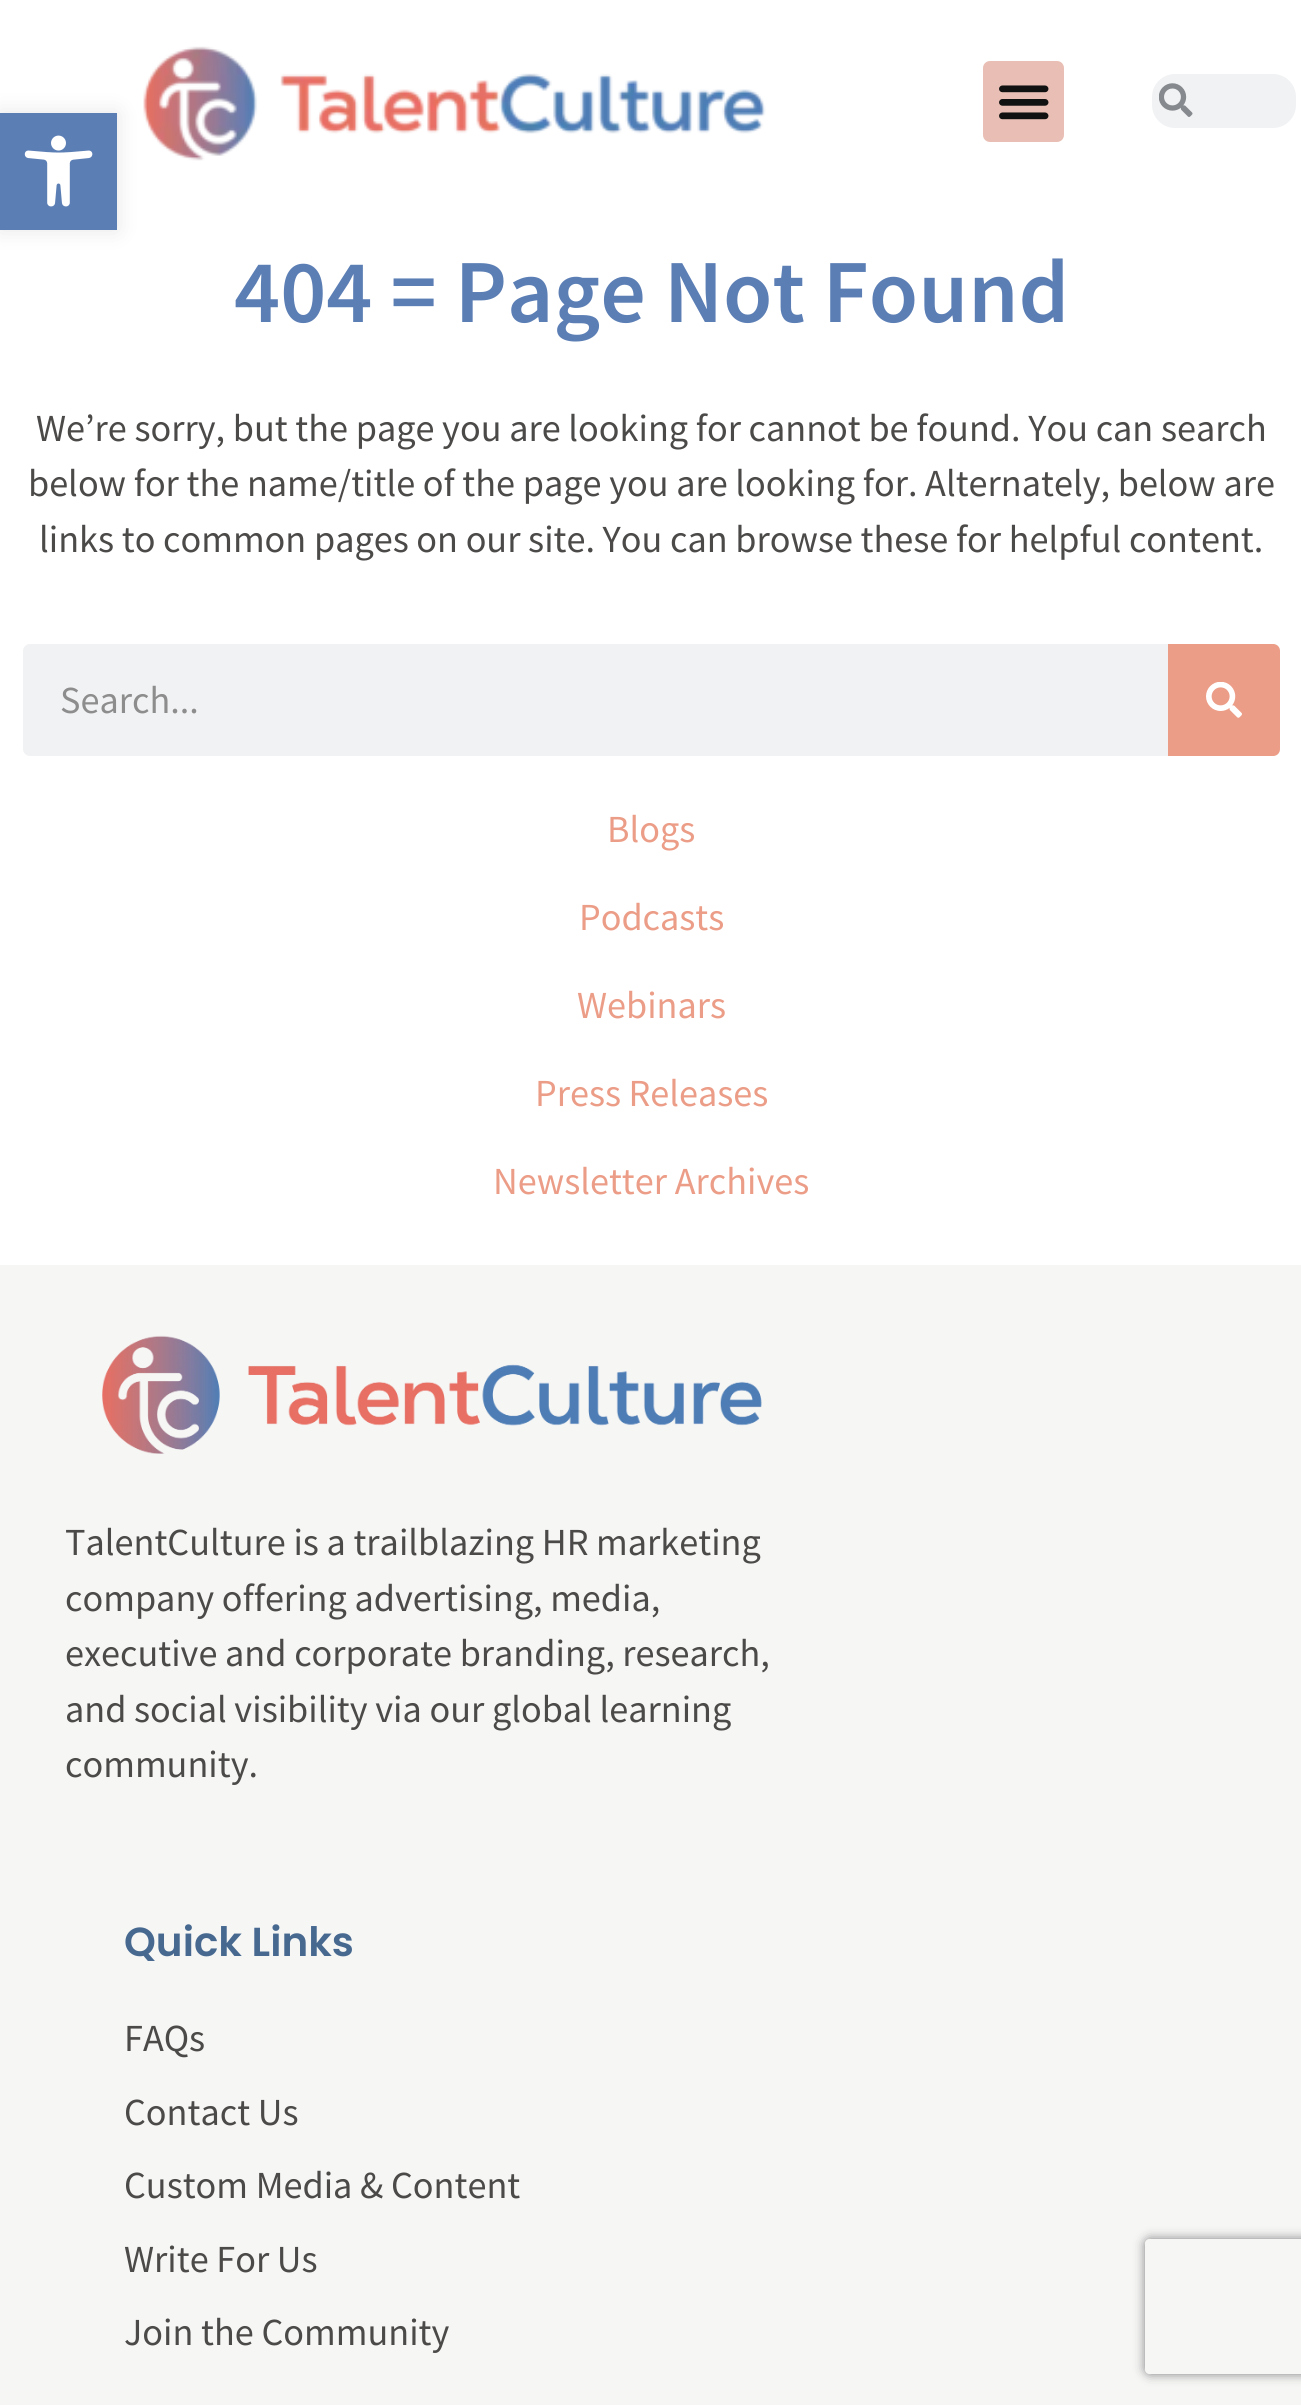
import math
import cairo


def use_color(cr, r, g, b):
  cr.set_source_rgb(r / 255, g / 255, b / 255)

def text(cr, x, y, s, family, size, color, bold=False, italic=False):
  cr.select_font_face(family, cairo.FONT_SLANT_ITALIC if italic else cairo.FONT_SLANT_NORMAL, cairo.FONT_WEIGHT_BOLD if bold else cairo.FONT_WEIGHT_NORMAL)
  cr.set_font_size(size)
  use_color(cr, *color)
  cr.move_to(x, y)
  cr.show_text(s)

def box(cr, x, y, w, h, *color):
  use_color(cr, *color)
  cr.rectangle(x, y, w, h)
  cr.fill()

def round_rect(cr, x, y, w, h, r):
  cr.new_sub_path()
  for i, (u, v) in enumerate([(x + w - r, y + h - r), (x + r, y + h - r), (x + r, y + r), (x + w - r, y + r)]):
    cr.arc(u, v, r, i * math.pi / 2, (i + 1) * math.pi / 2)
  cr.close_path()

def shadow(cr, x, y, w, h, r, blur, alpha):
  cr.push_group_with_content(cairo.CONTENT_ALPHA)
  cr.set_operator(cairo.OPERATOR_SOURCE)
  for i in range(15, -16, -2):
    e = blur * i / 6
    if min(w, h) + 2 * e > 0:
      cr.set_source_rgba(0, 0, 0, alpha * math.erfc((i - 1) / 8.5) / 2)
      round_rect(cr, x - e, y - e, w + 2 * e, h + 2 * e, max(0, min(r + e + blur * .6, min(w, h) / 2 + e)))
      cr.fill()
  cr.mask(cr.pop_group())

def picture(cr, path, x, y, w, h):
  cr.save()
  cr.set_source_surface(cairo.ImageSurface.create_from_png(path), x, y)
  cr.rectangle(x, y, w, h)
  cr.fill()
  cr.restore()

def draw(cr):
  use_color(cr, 255, 255, 255)
  cr.paint()
  picture(cr, "img_02.png", 143, 46, 623, 115)
  use_color(cr, 0, 0, 0)
  shadow(cr, 0, 113, 117, 117, 0, 11, 0.1)
  box(cr, 0, 113, 117, 117, 91, 126, 181)
  picture(cr, "img_01.png", 24, 135, 69, 72)
  use_color(cr, 233, 191, 181)
  round_rect(cr, 983, 61, 81, 81, 7)
  cr.fill()
  picture(cr, "img_03.png", 999, 85, 50, 35)
  use_color(cr, 241, 242, 243)
  round_rect(cr, 1152, 74, 144, 54, 23)
  cr.fill()
  picture(cr, "img_04.png", 1159, 83, 34, 34)
  round_rect(cr, 23, 644, 1257, 112, 7)
  cr.fill()
  use_color(cr, 236, 157, 135)
  cr.new_path()
  cr.move_to(1168, 644)
  cr.line_to(1273, 644)
  cr.curve_to(1277, 644, 1280, 647, 1280, 651)
  cr.line_to(1280, 749)
  cr.curve_to(1280, 753, 1277, 756, 1273, 756)
  cr.line_to(1168, 756)
  cr.close_path()
  cr.fill()
  picture(cr, "img_05.png", 1206, 682, 36, 36)
  box(cr, 0, 1265, 1301, 1140, 246, 246, 245)
  picture(cr, "img_06.png", 102, 1335, 660, 119)
  cr.save()
  cr.set_fill_rule(cairo.FILL_RULE_EVEN_ODD)
  cr.new_path()
  cr.move_to(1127, 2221)
  cr.line_to(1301, 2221)
  cr.line_to(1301, 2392)
  cr.line_to(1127, 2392)
  cr.close_path()
  cr.move_to(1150, 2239)
  cr.line_to(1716, 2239)
  cr.curve_to(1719, 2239, 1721, 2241, 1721, 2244)
  cr.line_to(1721, 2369)
  cr.curve_to(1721, 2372, 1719, 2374, 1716, 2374)
  cr.line_to(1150, 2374)
  cr.curve_to(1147, 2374, 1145, 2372, 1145, 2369)
  cr.line_to(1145, 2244)
  cr.curve_to(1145, 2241, 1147, 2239, 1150, 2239)
  cr.close_path()
  cr.clip()
  use_color(cr, 128, 128, 128)
  shadow(cr, 1145, 2239, 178, 135, 5, 5.5, 1)
  cr.restore()
  text(cr, 234, 322, "404 = Page Not Found", "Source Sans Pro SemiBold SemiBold", 90, (91, 126, 181))
  text(cr, 36, 441, "We’re sorry, but the page you are looking for cannot be found. You can search", "Source Sans Pro", 38.25, (76, 74, 73))
  text(cr, 28, 496, "below for the name/title of the page you are looking for. Alternately, below are", "Source Sans Pro", 38.25, (76, 74, 73))
  text(cr, 39, 552, "links to common pages on our site. You can browse these for helpful content.", "Source Sans Pro", 38.25, (76, 74, 73))
  text(cr, 60, 713, "Search...", "Source Sans Pro", 38.25, (142, 141, 141))
  text(cr, 607, 842, "Blogs", "Source Sans Pro", 38.25, (236, 157, 135))
  text(cr, 579, 930, "Podcasts", "Source Sans Pro", 38.25, (236, 157, 135))
  text(cr, 577, 1018, "Webinars", "Source Sans Pro", 38.25, (236, 157, 135))
  text(cr, 535, 1106, "Press Releases", "Source Sans Pro", 38.25, (236, 157, 135))
  text(cr, 493, 1194, "Newsletter Archives", "Source Sans Pro", 38.25, (236, 157, 135))
  text(cr, 65, 1555, "TalentCulture is a trailblazing HR marketing", "Source Sans Pro", 38.25, (76, 74, 73))
  text(cr, 65, 1611, "company offering advertising, media,", "Source Sans Pro", 38.25, (76, 74, 73))
  text(cr, 65, 1666, "executive and corporate branding, research,", "Source Sans Pro", 38.25, (76, 74, 73))
  text(cr, 65, 1722, "and social visibility via our global learning", "Source Sans Pro", 38.25, (76, 74, 73))
  text(cr, 65, 1777, "community.", "Source Sans Pro", 38.25, (76, 74, 73))
  text(cr, 124, 1956, "Quick Links", "Poppins SemiBold", 40.5, (71, 105, 144))
  text(cr, 124, 2051, "FAQs", "Source Sans Pro", 38.25, (76, 74, 73))
  text(cr, 124, 2125, "Contact Us", "Source Sans Pro", 38.25, (76, 74, 73))
  text(cr, 124, 2198, "Custom Media & Content", "Source Sans Pro", 38.25, (76, 74, 73))
  text(cr, 124, 2272, "Write For Us", "Source Sans Pro", 38.25, (76, 74, 73))
  text(cr, 124, 2345, "Join the Community", "Source Sans Pro", 38.25, (76, 74, 73))


surface = cairo.ImageSurface(cairo.FORMAT_RGB24, 1301, 2405)
cr = cairo.Context(surface)
options = cairo.FontOptions()
options.set_hint_metrics(cairo.HINT_METRICS_OFF)
options.set_hint_style(cairo.HINT_STYLE_NONE)
cr.set_font_options(options)
cr.set_miter_limit(4)
draw(cr)
surface.write_to_png("out.png")
